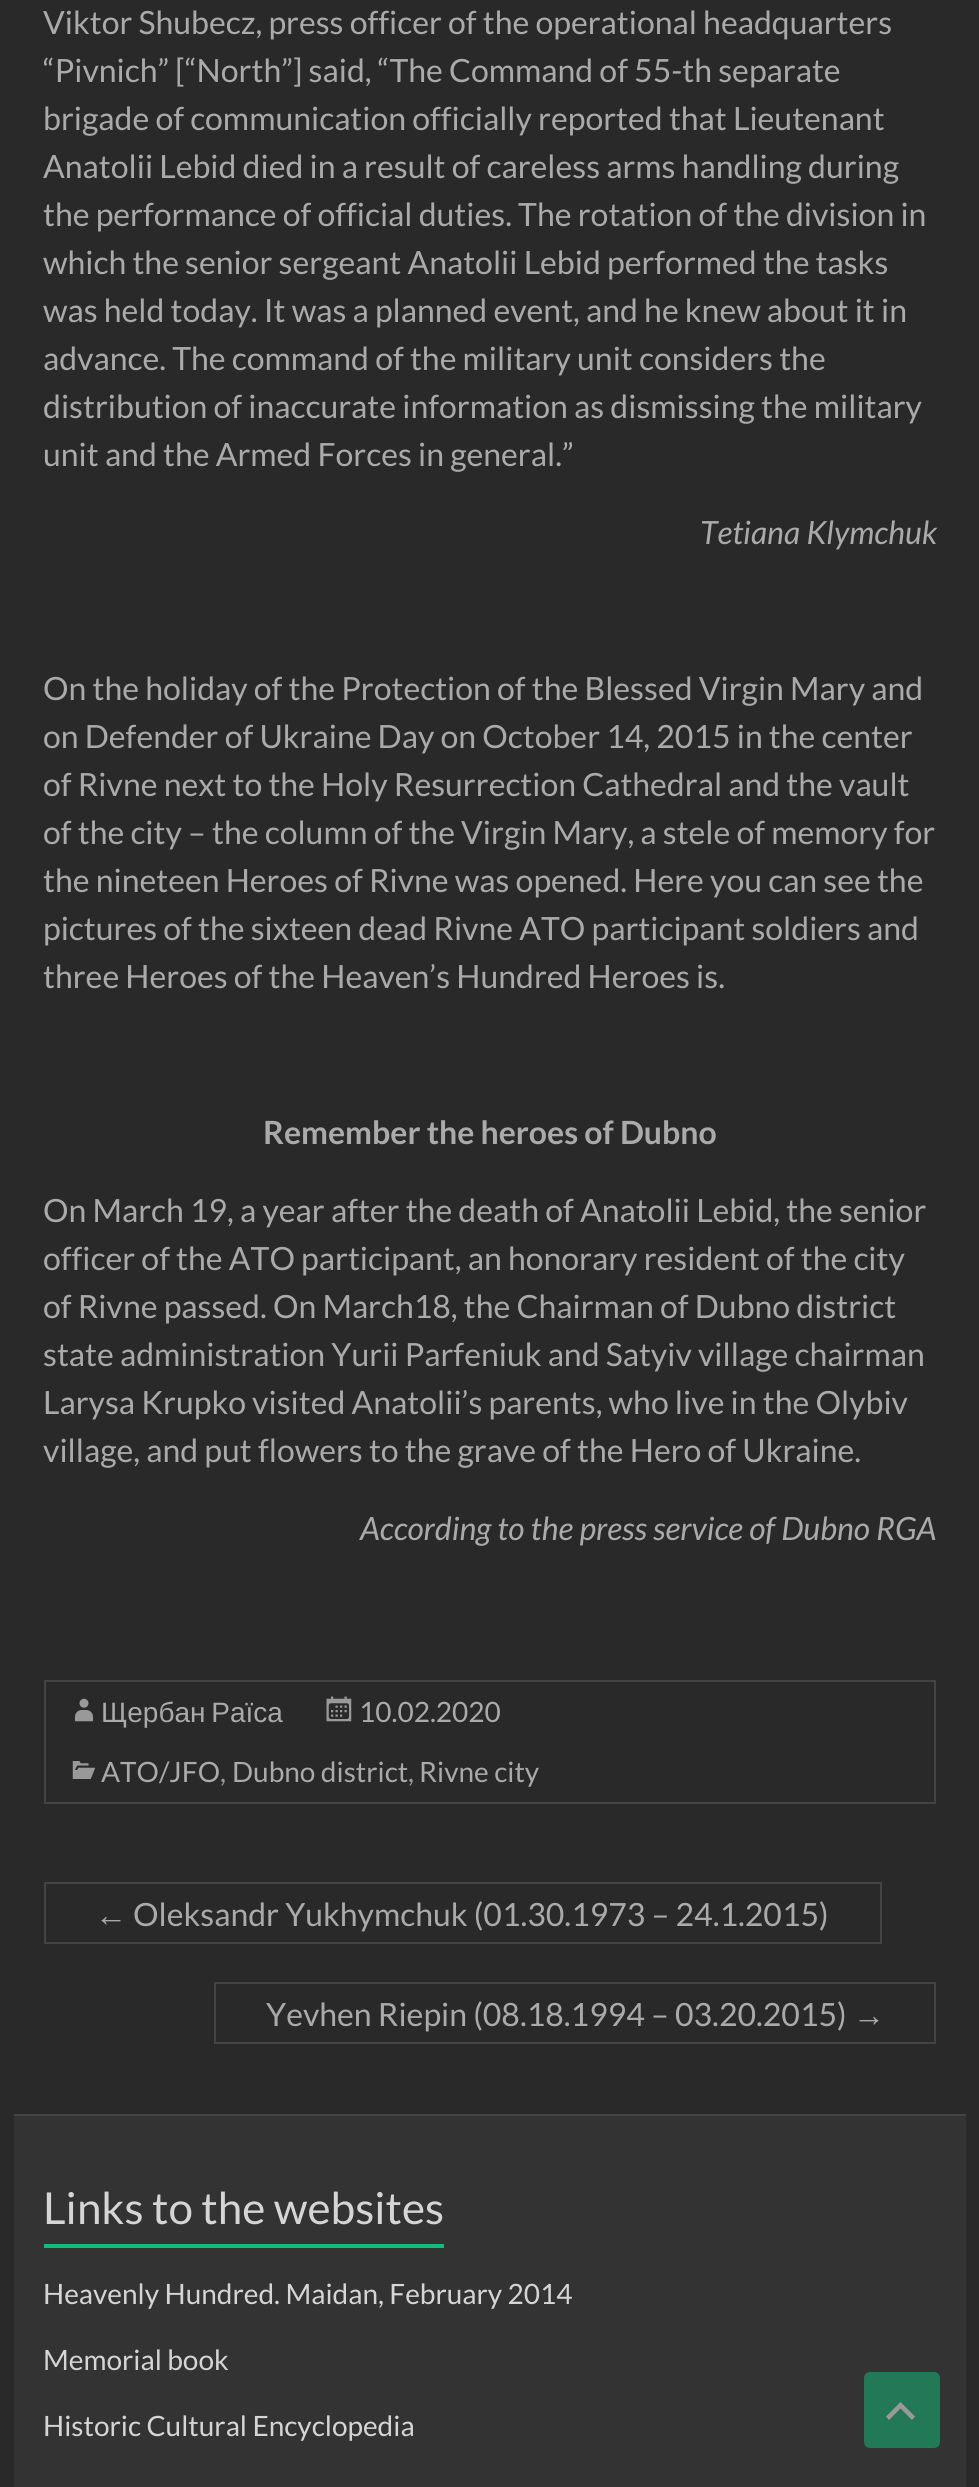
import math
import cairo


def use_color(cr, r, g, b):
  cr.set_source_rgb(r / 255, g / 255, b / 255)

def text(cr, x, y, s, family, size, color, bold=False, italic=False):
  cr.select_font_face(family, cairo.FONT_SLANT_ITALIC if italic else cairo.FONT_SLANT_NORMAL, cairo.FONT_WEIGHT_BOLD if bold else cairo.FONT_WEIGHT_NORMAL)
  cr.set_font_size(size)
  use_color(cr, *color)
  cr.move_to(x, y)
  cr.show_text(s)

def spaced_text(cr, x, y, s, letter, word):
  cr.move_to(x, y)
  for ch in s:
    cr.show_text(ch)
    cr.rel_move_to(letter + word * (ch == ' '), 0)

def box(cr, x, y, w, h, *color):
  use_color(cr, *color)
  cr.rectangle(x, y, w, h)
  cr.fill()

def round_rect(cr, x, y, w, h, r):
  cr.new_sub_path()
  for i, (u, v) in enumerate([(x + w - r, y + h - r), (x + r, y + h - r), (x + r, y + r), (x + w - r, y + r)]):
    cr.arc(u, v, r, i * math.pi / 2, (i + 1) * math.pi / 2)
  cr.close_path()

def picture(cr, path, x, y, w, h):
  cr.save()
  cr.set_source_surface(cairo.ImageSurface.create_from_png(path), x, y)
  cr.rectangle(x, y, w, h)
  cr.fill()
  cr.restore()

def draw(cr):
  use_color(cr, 41, 41, 41)
  cr.paint()
  cr.rectangle(45, 1681, 890, 122)
  use_color(cr, 68, 68, 68)
  cr.stroke()
  picture(cr, "img_01.png", 75, 1698, 18, 24)
  picture(cr, "img_02.png", 326, 1696, 26, 26)
  picture(cr, "img_03.png", 72, 1761, 24, 18)
  box(cr, 44, 1942, 84, 2, 68, 68, 68)
  box(cr, 44, 1882, 838, 2, 68, 68, 68)
  box(cr, 44, 1882, 2, 62, 68, 68, 68)
  box(cr, 880, 1882, 2, 62, 68, 68, 68)
  box(cr, 128, 1942, 754, 2, 68, 68, 68)
  box(cr, 214, 1982, 722, 2, 68, 68, 68)
  box(cr, 214, 2042, 638, 2, 68, 68, 68)
  box(cr, 214, 1982, 2, 62, 68, 68, 68)
  box(cr, 934, 1982, 2, 62, 68, 68, 68)
  box(cr, 852, 2042, 84, 2, 68, 68, 68)
  box(cr, 14, 2116, 952, 371, 51, 51, 51)
  box(cr, 14, 2114, 952, 2, 68, 68, 68)
  box(cr, 44, 2244, 400, 4, 15, 190, 124)
  use_color(cr, 33, 121, 88)
  round_rect(cr, 864, 2372, 76, 76, 6)
  cr.fill()
  use_color(cr, 153, 153, 153)
  cr.new_path()
  cr.move_to(912, 2420)
  cr.line_to(900.5, 2408.5)
  cr.line_to(889, 2420)
  cr.line_to(886, 2416.5)
  cr.line_to(900.5, 2402)
  cr.line_to(915, 2416.5)
  cr.close_path()
  cr.fill()
  text(cr, 43, 34, "Viktor Shubecz, press officer of the operational headquarters", "Lato", 32, (170, 170, 170))
  text(cr, 43, 82, "“Pivnich” [“North”] said, “The Command of 55-th separate", "Lato", 32, (170, 170, 170))
  text(cr, 43, 130, "brigade of communication officially reported that Lieutenant", "Lato", 32, (170, 170, 170))
  text(cr, 43, 178, "Anatolii Lebid died in a result of careless arms handling during", "Lato", 32, (170, 170, 170))
  text(cr, 43, 226, "the performance of official duties. The rotation of the division in", "Lato", 32, (170, 170, 170))
  text(cr, 43, 274, "which the senior sergeant Anatolii Lebid performed the tasks", "Lato", 32, (170, 170, 170))
  text(cr, 43, 322, "was held today. It was a planned event, and he knew about it in", "Lato", 32, (170, 170, 170))
  text(cr, 43, 370, "advance. The command of the military unit considers the", "Lato", 32, (170, 170, 170))
  text(cr, 43, 418, "distribution of inaccurate information as dismissing the military", "Lato", 32, (170, 170, 170))
  text(cr, 43, 466, "unit and the Armed Forces in general.”", "Lato", 32, (170, 170, 170))
  text(cr, 700, 544, "Tetiana Klymchuk", "Lato", 32, (170, 170, 170), italic=True)
  text(cr, 43, 700, "On the holiday of the Protection of the Blessed Virgin Mary and", "Lato", 32, (170, 170, 170))
  text(cr, 43, 748, "on Defender of Ukraine Day on October 14, 2015 in the center", "Lato", 32, (170, 170, 170))
  text(cr, 43, 796, "of Rivne next to the Holy Resurrection Cathedral and the vault", "Lato", 32, (170, 170, 170))
  text(cr, 43, 844, "of the city – the column of the Virgin Mary, a stele of memory for", "Lato", 32, (170, 170, 170))
  text(cr, 43, 892, "the nineteen Heroes of Rivne was opened. Here you can see the", "Lato", 32, (170, 170, 170))
  text(cr, 43, 940, "pictures of the sixteen dead Rivne ATO participant soldiers and", "Lato", 32, (170, 170, 170))
  text(cr, 43, 988, "three Heroes of the Heaven’s Hundred Heroes is.", "Lato", 32, (170, 170, 170))
  text(cr, 263, 1144, "Remember the heroes of Dubno", "Lato", 32, (170, 170, 170), bold=True)
  text(cr, 43, 1222, "On March 19, a year after the death of Anatolii Lebid, the senior", "Lato", 32, (170, 170, 170))
  text(cr, 43, 1270, "officer of the ATO participant, an honorary resident of the city", "Lato", 32, (170, 170, 170))
  text(cr, 43, 1318, "of Rivne passed. On March18, the Chairman of Dubno district", "Lato", 32, (170, 170, 170))
  text(cr, 43, 1366, "state administration Yurii Parfeniuk and Satyiv village chairman", "Lato", 32, (170, 170, 170))
  text(cr, 43, 1414, "Larysa Krupko visited Anatolii’s parents, who live in the Olybiv", "Lato", 32, (170, 170, 170))
  text(cr, 43, 1462, "village, and put flowers to the grave of the Hero of Ukraine.", "Lato", 32, (170, 170, 170))
  text(cr, 360, 1540, "According to the press service of Dubno RGA", "Lato", 32, (170, 170, 170), italic=True)
  cr.select_font_face("Liberation Sans")
  cr.set_font_size(28)
  spaced_text(cr, 101, 1722, "Щербан Раїса", 0, -2)
  text(cr, 359, 1722, "10.02.2020", "Lato", 28, (170, 170, 170))
  text(cr, 101, 1782, "ATO/JFO", "Lato", 28, (170, 170, 170))
  text(cr, 220, 1782, ",", "Lato", 28, (153, 153, 153))
  text(cr, 232, 1782, "Dubno district", "Lato", 28, (170, 170, 170))
  text(cr, 408, 1782, ",", "Lato", 28, (153, 153, 153))
  text(cr, 419, 1782, "Rivne city", "Lato", 28, (170, 170, 170))
  text(cr, 95, 1926, "←", "Liberation Sans", 32, (170, 170, 170))
  text(cr, 133, 1926, "Oleksandr Yukhymchuk (01.30.1973 – 24.1.2015)", "Lato", 32, (170, 170, 170))
  text(cr, 266, 2026, "Yevhen Riepin (08.18.1994 – 03.20.2015)", "Lato", 32, (170, 170, 170))
  text(cr, 853, 2026, "→", "Liberation Sans", 32, (170, 170, 170))
  text(cr, 43, 2224, "Links to the websites", "Lato", 44, (213, 213, 213))
  text(cr, 43, 2304, "Heavenly Hundred. Maidan, February 2014", "Lato", 28, (213, 213, 213))
  text(cr, 43, 2370, "Memorial book", "Lato", 28, (213, 213, 213))
  text(cr, 43, 2436, "Historic Cultural Encyclopedia", "Lato", 28, (213, 213, 213))


surface = cairo.ImageSurface(cairo.FORMAT_RGB24, 979, 2487)
cr = cairo.Context(surface)
options = cairo.FontOptions()
options.set_hint_metrics(cairo.HINT_METRICS_OFF)
options.set_hint_style(cairo.HINT_STYLE_NONE)
cr.set_font_options(options)
cr.set_miter_limit(4)
draw(cr)
surface.write_to_png("out.png")
